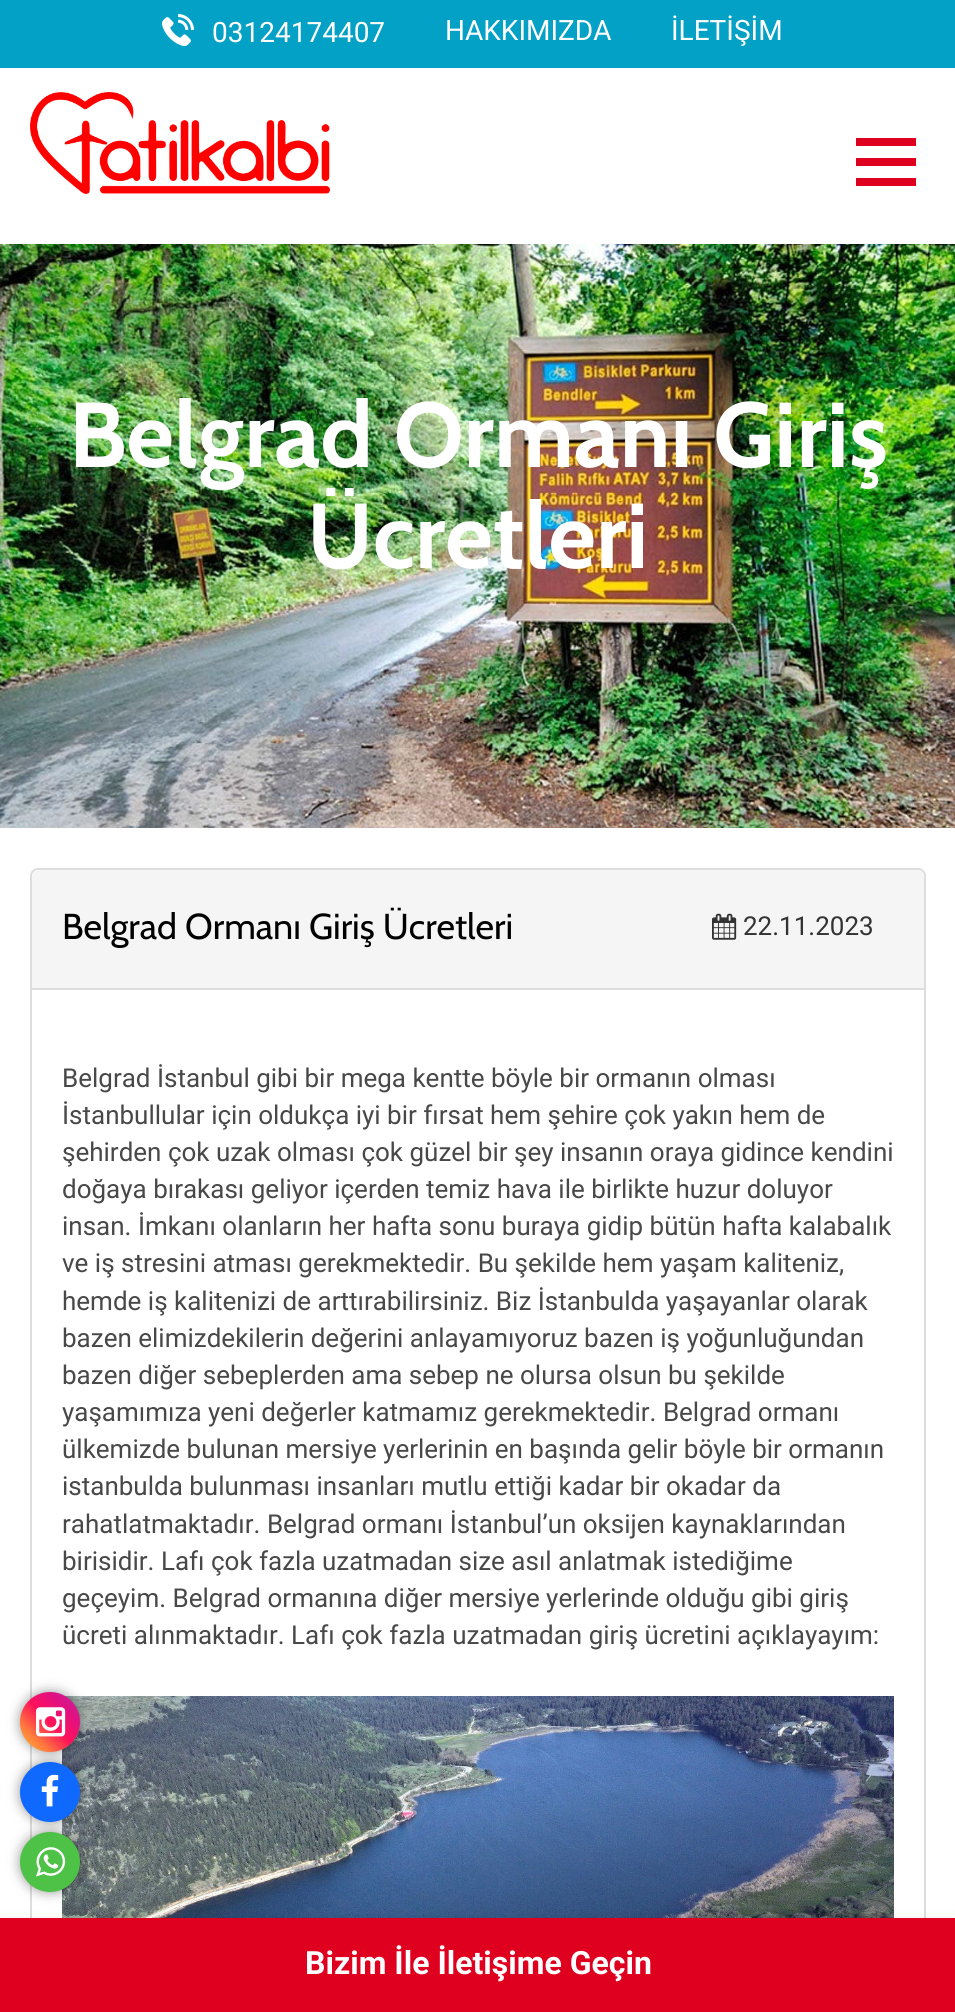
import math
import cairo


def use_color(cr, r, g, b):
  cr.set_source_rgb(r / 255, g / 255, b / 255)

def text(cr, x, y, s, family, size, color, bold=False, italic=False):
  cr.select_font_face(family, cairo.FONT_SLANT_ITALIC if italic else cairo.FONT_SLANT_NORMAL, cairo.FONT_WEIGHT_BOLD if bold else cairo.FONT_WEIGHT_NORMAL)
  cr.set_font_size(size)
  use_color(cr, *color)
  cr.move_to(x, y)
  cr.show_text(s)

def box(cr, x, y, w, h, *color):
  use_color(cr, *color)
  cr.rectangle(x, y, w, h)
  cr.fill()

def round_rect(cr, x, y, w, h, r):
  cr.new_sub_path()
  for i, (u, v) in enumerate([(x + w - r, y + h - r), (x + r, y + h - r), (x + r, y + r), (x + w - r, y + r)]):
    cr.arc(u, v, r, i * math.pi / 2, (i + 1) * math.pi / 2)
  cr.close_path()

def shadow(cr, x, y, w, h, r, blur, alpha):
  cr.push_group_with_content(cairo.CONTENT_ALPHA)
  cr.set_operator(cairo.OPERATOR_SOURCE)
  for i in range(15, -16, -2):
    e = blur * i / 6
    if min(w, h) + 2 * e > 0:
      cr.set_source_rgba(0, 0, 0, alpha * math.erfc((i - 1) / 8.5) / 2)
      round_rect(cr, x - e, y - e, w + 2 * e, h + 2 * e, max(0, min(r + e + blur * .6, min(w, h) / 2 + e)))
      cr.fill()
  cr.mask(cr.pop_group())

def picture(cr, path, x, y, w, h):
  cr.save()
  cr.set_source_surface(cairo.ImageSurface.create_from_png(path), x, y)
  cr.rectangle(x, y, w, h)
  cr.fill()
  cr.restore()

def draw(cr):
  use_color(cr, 255, 255, 255)
  cr.paint()
  box(cr, 0, 0, 955, 68, 4, 161, 198)
  picture(cr, "img_01.png", 162, 14, 32, 32)
  picture(cr, "img_02.png", 30, 92, 300, 102)
  box(cr, 856, 158, 60, 8, 223, 0, 31)
  box(cr, 856, 138, 60, 8, 223, 0, 31)
  box(cr, 856, 178, 60, 8, 223, 0, 31)
  picture(cr, "img_03.png", 0, 244, 955, 584)
  round_rect(cr, 31, 869, 894, 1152, 7)
  use_color(cr, 221, 221, 221)
  cr.stroke()
  use_color(cr, 245, 245, 245)
  cr.new_path()
  cr.move_to(38, 870)
  cr.line_to(918, 870)
  cr.curve_to(921.5, 870, 924, 872.5, 924, 876)
  cr.line_to(924, 990)
  cr.line_to(32, 990)
  cr.line_to(32, 876)
  cr.curve_to(32, 872.5, 34.5, 870, 38, 870)
  cr.close_path()
  cr.fill()
  box(cr, 32, 988, 892, 2, 221, 221, 221)
  picture(cr, "img_04.png", 712, 913, 25, 27)
  picture(cr, "img_05.png", 62, 1696, 832, 222)
  use_color(cr, 0, 0, 0)
  shadow(cr, 20, 1832, 60, 60, 30, 6, 0.4)
  use_color(cr, 77, 194, 71)
  cr.arc(50, 1862, 30, 0, 2 * math.pi)
  cr.fill()
  use_color(cr, 0, 0, 0)
  shadow(cr, 20, 1762, 60, 60, 30, 6, 0.4)
  use_color(cr, 15, 105, 255)
  cr.arc(50, 1792, 30, 0, 2 * math.pi)
  cr.fill()
  use_color(cr, 0, 0, 0)
  shadow(cr, 20, 1692, 60, 60, 30, 6, 0.4)
  gradient = cairo.LinearGradient(20, 1752, 80, 1692)
  gradient.add_color_stop_rgba(0, 0.996, 0.761, 0.196, 1)
  gradient.add_color_stop_rgba(0.25, 0.996, 0.471, 0.239, 1)
  gradient.add_color_stop_rgba(0.5, 1, 0.067, 0.353, 1)
  gradient.add_color_stop_rgba(0.75, 0.875, 0.067, 0.514, 1)
  gradient.add_color_stop_rgba(1, 0.769, 0.137, 0.631, 1)
  cr.set_source(gradient)
  cr.arc(50, 1722, 30, 0, 2 * math.pi)
  cr.fill()
  picture(cr, "img_06.png", 36, 1707, 30, 30)
  picture(cr, "img_07.png", 41, 1774, 18, 33)
  picture(cr, "img_08.png", 36, 1847, 30, 30)
  use_color(cr, 0, 0, 0)
  shadow(cr, 0, 1926, 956, 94, 0, 8, 0.2)
  box(cr, 0, 1918, 955, 94, 223, 0, 31)
  text(cr, 212, 42, "03124174407", "Roboto", 28, (255, 255, 255))
  text(cr, 445, 40, "HAKKIMIZDA", "Roboto", 28, (255, 255, 255))
  text(cr, 671, 40, "İLETİŞİM", "Roboto", 28, (255, 255, 255))
  text(cr, 69, 467, "Belgrad Ormanı Giriş", "Cabin", 92, (255, 255, 255), bold=True)
  text(cr, 307, 568, "Ücretleri", "Cabin", 92, (255, 255, 255), bold=True)
  text(cr, 62, 939, "Belgrad Ormanı Giriş Ücretleri", "Cabin", 36, (0, 0, 0))
  text(cr, 743, 935, "22.11.2023", "Roboto", 26, (51, 51, 51))
  text(cr, 62, 1087, "Belgrad İstanbul gibi bir mega kentte böyle bir ormanın olması", "Roboto", 26, (72, 72, 72))
  text(cr, 62, 1124, "İstanbullular için oldukça iyi bir fırsat hem şehire çok yakın hem de", "Roboto", 26, (72, 72, 72))
  text(cr, 62, 1161, "şehirden çok uzak olması çok güzel bir şey insanın oraya gidince kendini", "Roboto", 26, (72, 72, 72))
  text(cr, 62, 1198, "doğaya bırakası geliyor içerden temiz hava ile birlikte huzur doluyor", "Roboto", 26, (72, 72, 72))
  text(cr, 62, 1235, "insan. İmkanı olanların her hafta sonu buraya gidip bütün hafta kalabalık", "Roboto", 26, (72, 72, 72))
  text(cr, 62, 1272, "ve iş stresini atması gerekmektedir. Bu şekilde hem yaşam kaliteniz,", "Roboto", 26, (72, 72, 72))
  text(cr, 62, 1310, "hemde iş kalitenizi de arttırabilirsiniz. Biz İstanbulda yaşayanlar olarak", "Roboto", 26, (72, 72, 72))
  text(cr, 62, 1347, "bazen elimizdekilerin değerini anlayamıyoruz bazen iş yoğunluğundan", "Roboto", 26, (72, 72, 72))
  text(cr, 62, 1384, "bazen diğer sebeplerden ama sebep ne olursa olsun bu şekilde", "Roboto", 26, (72, 72, 72))
  text(cr, 62, 1421, "yaşamımıza yeni değerler katmamız gerekmektedir. Belgrad ormanı", "Roboto", 26, (72, 72, 72))
  text(cr, 62, 1458, "ülkemizde bulunan mersiye yerlerinin en başında gelir böyle bir ormanın", "Roboto", 26, (72, 72, 72))
  text(cr, 62, 1495, "istanbulda bulunması insanları mutlu ettiği kadar bir okadar da", "Roboto", 26, (72, 72, 72))
  text(cr, 62, 1533, "rahatlatmaktadır. Belgrad ormanı İstanbul’un oksijen kaynaklarından", "Roboto", 26, (72, 72, 72))
  text(cr, 62, 1570, "birisidir. Lafı çok fazla uzatmadan size asıl anlatmak istediğime", "Roboto", 26, (72, 72, 72))
  text(cr, 62, 1607, "geçeyim. Belgrad ormanına diğer mersiye yerlerinde olduğu gibi giriş", "Roboto", 26, (72, 72, 72))
  text(cr, 62, 1644, "ücreti alınmaktadır. Lafı çok fazla uzatmadan giriş ücretini açıklayayım:", "Roboto", 26, (72, 72, 72))
  text(cr, 305, 1974, "Bizim İle İletişime Geçin", "Roboto", 32, (255, 255, 255), bold=True)


surface = cairo.ImageSurface(cairo.FORMAT_RGB24, 955, 2012)
cr = cairo.Context(surface)
options = cairo.FontOptions()
options.set_hint_metrics(cairo.HINT_METRICS_OFF)
options.set_hint_style(cairo.HINT_STYLE_NONE)
cr.set_font_options(options)
cr.set_miter_limit(4)
draw(cr)
surface.write_to_png("out.png")
